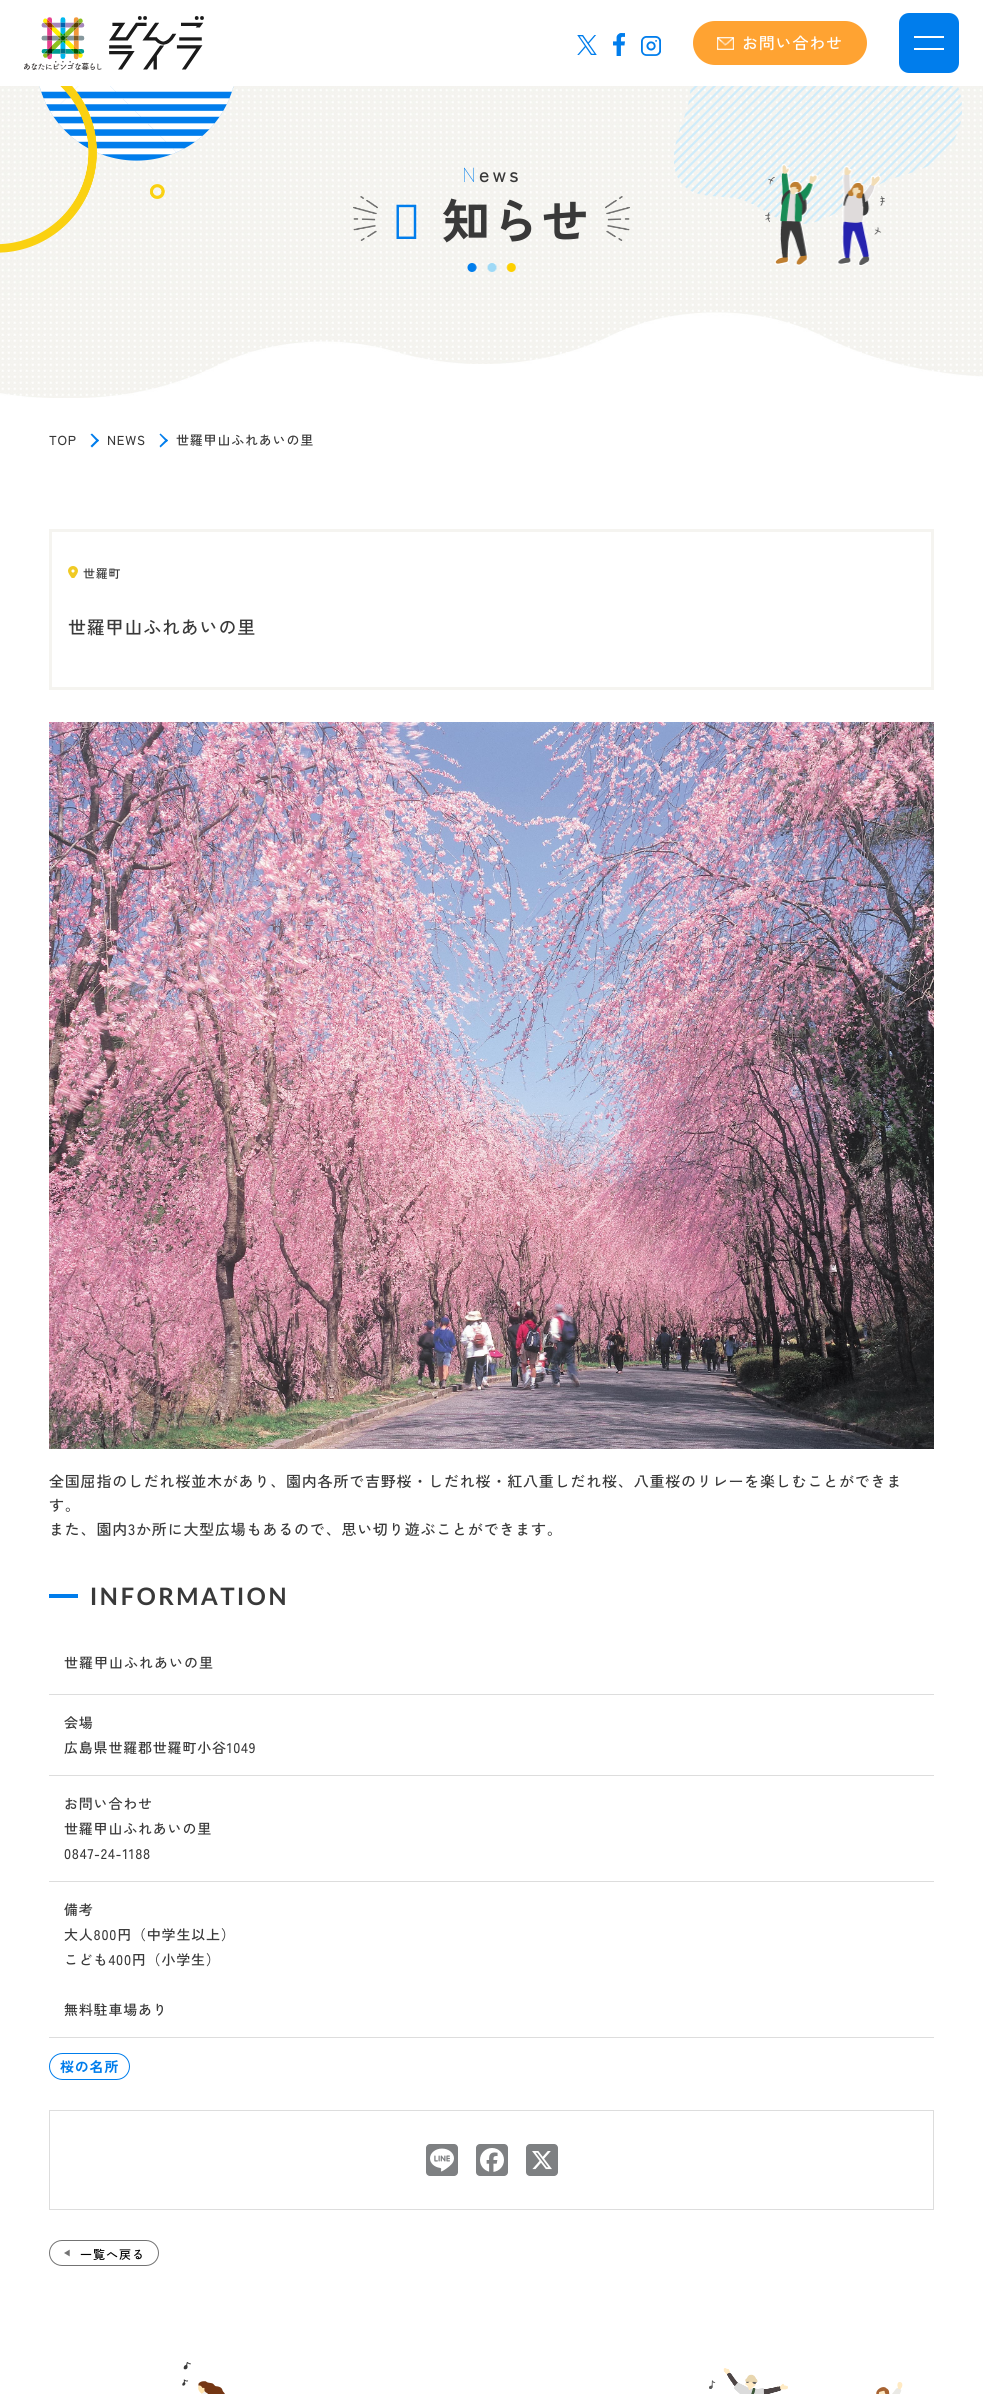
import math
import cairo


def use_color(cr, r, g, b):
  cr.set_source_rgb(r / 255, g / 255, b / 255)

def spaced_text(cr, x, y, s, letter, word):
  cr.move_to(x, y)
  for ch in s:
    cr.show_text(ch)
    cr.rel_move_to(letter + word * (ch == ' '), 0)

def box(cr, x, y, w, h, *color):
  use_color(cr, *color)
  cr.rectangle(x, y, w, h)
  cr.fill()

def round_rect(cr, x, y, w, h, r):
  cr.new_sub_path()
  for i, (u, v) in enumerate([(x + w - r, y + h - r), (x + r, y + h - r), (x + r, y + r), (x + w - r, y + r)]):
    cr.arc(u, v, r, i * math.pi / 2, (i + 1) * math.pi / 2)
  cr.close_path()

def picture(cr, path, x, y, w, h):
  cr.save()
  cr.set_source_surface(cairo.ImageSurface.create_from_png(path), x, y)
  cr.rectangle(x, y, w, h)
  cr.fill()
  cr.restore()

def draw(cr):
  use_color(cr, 255, 255, 255)
  cr.paint()
  picture(cr, "img_01.png", 24, 16, 180, 54)
  picture(cr, "img_02.png", 577, 35, 20, 20)
  picture(cr, "img_03.png", 613, 33, 12, 23)
  picture(cr, "img_04.png", 641, 36, 20, 20)
  use_color(cr, 255, 163, 50)
  round_rect(cr, 693, 21, 174, 44, 22)
  cr.fill()
  picture(cr, "img_05.png", 717, 37, 17, 13)
  use_color(cr, 0, 125, 236)
  round_rect(cr, 899, 13, 60, 60, 10)
  cr.fill()
  box(cr, 914, 36, 30, 2, 255, 255, 255)
  box(cr, 914, 48, 30, 2, 255, 255, 255)
  picture(cr, "img_06.png", 0, 86, 983, 312)
  picture(cr, "img_07.png", 353, 196, 25, 45)
  picture(cr, "img_08.png", 605, 196, 25, 45)
  picture(cr, "img_09.png", 467, 263, 49, 9)
  picture(cr, "img_10.png", 765, 164, 120, 102)
  use_color(cr, 0, 125, 236)
  cr.new_path()
  cr.move_to(92, 433.5)
  cr.line_to(99, 440.5)
  cr.line_to(97.5, 442)
  cr.line_to(90.5, 434.5)
  cr.close_path()
  cr.fill()
  cr.new_path()
  cr.move_to(97.5, 439)
  cr.line_to(99, 440.5)
  cr.line_to(92, 447.5)
  cr.line_to(90.5, 446)
  cr.close_path()
  cr.fill()
  cr.new_path()
  cr.move_to(160.5, 433.5)
  cr.line_to(168, 440.5)
  cr.line_to(166.5, 442)
  cr.line_to(159.5, 434.5)
  cr.close_path()
  cr.fill()
  cr.new_path()
  cr.move_to(166.5, 439)
  cr.line_to(168, 440.5)
  cr.line_to(160.5, 447.5)
  cr.line_to(159.5, 446)
  cr.close_path()
  cr.fill()
  cr.rectangle(50.5, 530.5, 882, 158)
  use_color(cr, 245, 244, 240)
  cr.set_line_width(3)
  cr.stroke()
  picture(cr, "img_11.png", 68, 566, 10, 12)
  picture(cr, "img_12.png", 49, 722, 885, 727)
  box(cr, 49, 1594, 29, 4, 0, 125, 236)
  box(cr, 49, 1694, 885, 1, 221, 221, 221)
  box(cr, 49, 1775, 885, 1, 221, 221, 221)
  box(cr, 49, 1881, 885, 1, 221, 221, 221)
  box(cr, 49, 2037, 885, 1, 221, 221, 221)
  round_rect(cr, 49.5, 2053.5, 80, 26, 13)
  use_color(cr, 0, 125, 236)
  cr.set_line_width(1)
  cr.stroke()
  cr.rectangle(49.5, 2110.5, 884, 99)
  use_color(cr, 221, 221, 221)
  cr.stroke()
  use_color(cr, 126, 128, 130)
  round_rect(cr, 426, 2144, 32, 32, 4)
  cr.fill()
  picture(cr, "img_13.png", 430, 2148, 24, 24)
  round_rect(cr, 476, 2144, 32, 32, 4)
  cr.fill()
  picture(cr, "img_14.png", 480, 2148, 24, 24)
  round_rect(cr, 526, 2144, 32, 32, 4)
  cr.fill()
  picture(cr, "img_15.png", 532, 2151, 20, 19)
  round_rect(cr, 49.5, 2240.5, 109, 25, 12.5)
  use_color(cr, 115, 115, 115)
  cr.stroke()
  picture(cr, "img_16.png", 64, 2249, 6, 8)
  picture(cr, "img_17.png", 182, 2362, 43, 32)
  picture(cr, "img_18.png", 709, 2368, 79, 26)
  picture(cr, "img_19.png", 876, 2382, 27, 12)
  cr.select_font_face("Zen Kaku Gothic New Medium")
  cr.set_font_size(16)
  use_color(cr, 255, 255, 255)
  spaced_text(cr, 742, 49, "お問い合わせ", 0.8, 0)
  cr.select_font_face("Noto Sans Thin")
  cr.set_font_size(20)
  use_color(cr, 0, 125, 236)
  spaced_text(cr, 462, 182, "N", 3, 0)
  cr.select_font_face("Zen Kaku Gothic New Medium")
  use_color(cr, 57, 57, 57)
  spaced_text(cr, 479, 182, "ews", 3, 0)
  cr.select_font_face("Noto Sans Thin")
  cr.set_font_size(48)
  use_color(cr, 0, 125, 236)
  spaced_text(cr, 392, 239, "お", 1.5, 0)
  cr.select_font_face("Zen Kaku Gothic New", cairo.FONT_SLANT_NORMAL, cairo.FONT_WEIGHT_BOLD)
  use_color(cr, 57, 57, 57)
  spaced_text(cr, 442, 239, "知らせ", 1.5, 0)
  cr.select_font_face("Zen Kaku Gothic New Medium")
  cr.set_font_size(13)
  spaced_text(cr, 49, 445, "TOP", 0.8, 0)
  spaced_text(cr, 107, 445, "NEWS", 0.8, 0)
  spaced_text(cr, 176, 445, "世羅甲山ふれあいの里", 0.8, 0)
  cr.set_font_size(12)
  spaced_text(cr, 83, 578, "世羅町", 0.8, 0)
  cr.set_font_size(18)
  spaced_text(cr, 68, 634, "世羅甲山ふれあいの里", 0.8, 0)
  cr.set_font_size(15)
  spaced_text(cr, 49, 1487, "全国屈指のしだれ桜並木があり、園内各所で吉野桜・しだれ桜・紅八重しだれ桜、八重桜のリレーを楽しむことができま", 0.8, 0)
  spaced_text(cr, 49, 1511, "す。", 0.8, 0)
  spaced_text(cr, 49, 1535, "また、園内3か所に大型広場もあるので、思い切り遊ぶことができます。", 0.8, 0)
  cr.select_font_face("Lato", cairo.FONT_SLANT_NORMAL, cairo.FONT_WEIGHT_BOLD)
  cr.set_font_size(24)
  spaced_text(cr, 90, 1605, "INFORMATION", 2.4, 0)
  cr.select_font_face("Zen Kaku Gothic New Medium")
  cr.set_font_size(14)
  spaced_text(cr, 64, 1668, "世羅甲山ふれあいの里", 1, 0)
  spaced_text(cr, 64, 1728, "会場", 0.8, 0)
  spaced_text(cr, 64, 1753, "広島県世羅郡世羅町小谷1049", 0.8, 0)
  spaced_text(cr, 64, 1809, "お問い合わせ", 0.8, 0)
  spaced_text(cr, 64, 1834, "世羅甲山ふれあいの里", 0.8, 0)
  spaced_text(cr, 64, 1859, "0847-24-1188", 0.8, 0)
  spaced_text(cr, 64, 1915, "備考", 0.8, 0)
  spaced_text(cr, 64, 1940, "大人800円（中学生以上）", 0.8, 0)
  spaced_text(cr, 64, 1965, "こども400円（小学生）", 0.8, 0)
  spaced_text(cr, 64, 2015, "無料駐車場あり", 0.8, 0)
  cr.select_font_face("Zen Kaku Gothic New", cairo.FONT_SLANT_NORMAL, cairo.FONT_WEIGHT_BOLD)
  use_color(cr, 0, 125, 236)
  spaced_text(cr, 60, 2072, "桜の名所", 0.8, 0)
  cr.select_font_face("Zen Kaku Gothic New Medium")
  cr.set_font_size(12)
  use_color(cr, 0, 0, 0)
  spaced_text(cr, 80, 2259, "一覧へ戻る", 1, 0)


surface = cairo.ImageSurface(cairo.FORMAT_RGB24, 983, 2394)
cr = cairo.Context(surface)
options = cairo.FontOptions()
options.set_hint_metrics(cairo.HINT_METRICS_OFF)
options.set_hint_style(cairo.HINT_STYLE_NONE)
cr.set_font_options(options)
cr.set_miter_limit(4)
draw(cr)
surface.write_to_png("out.png")
